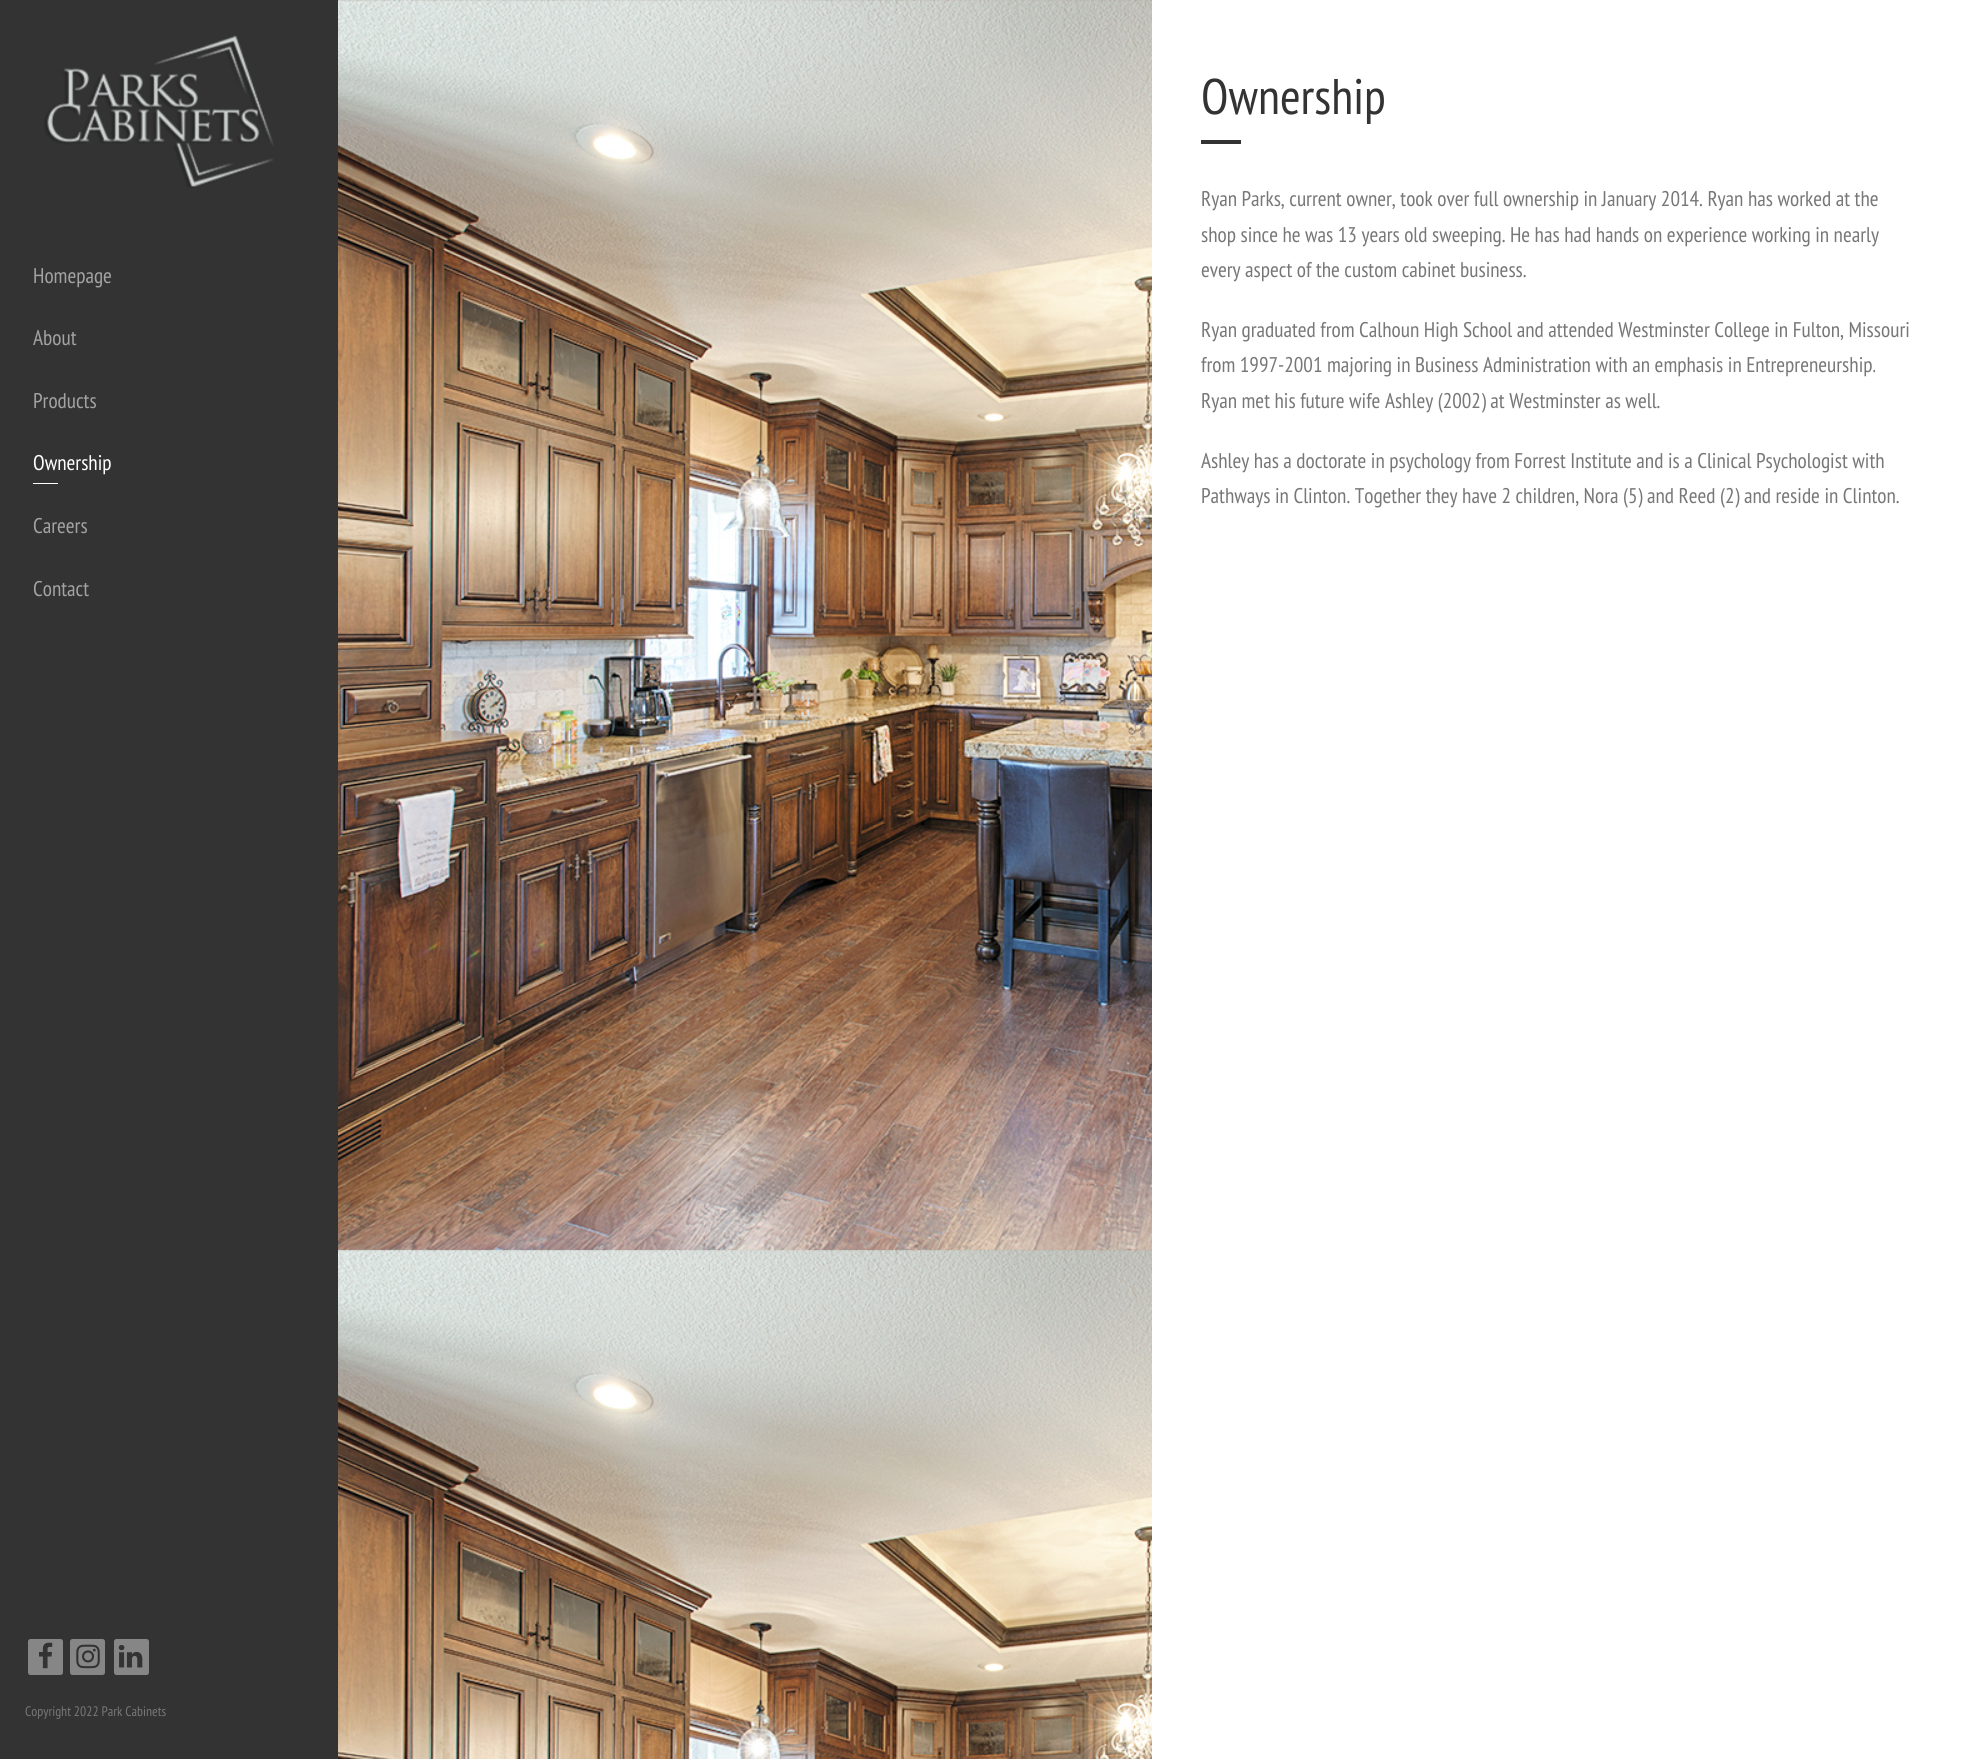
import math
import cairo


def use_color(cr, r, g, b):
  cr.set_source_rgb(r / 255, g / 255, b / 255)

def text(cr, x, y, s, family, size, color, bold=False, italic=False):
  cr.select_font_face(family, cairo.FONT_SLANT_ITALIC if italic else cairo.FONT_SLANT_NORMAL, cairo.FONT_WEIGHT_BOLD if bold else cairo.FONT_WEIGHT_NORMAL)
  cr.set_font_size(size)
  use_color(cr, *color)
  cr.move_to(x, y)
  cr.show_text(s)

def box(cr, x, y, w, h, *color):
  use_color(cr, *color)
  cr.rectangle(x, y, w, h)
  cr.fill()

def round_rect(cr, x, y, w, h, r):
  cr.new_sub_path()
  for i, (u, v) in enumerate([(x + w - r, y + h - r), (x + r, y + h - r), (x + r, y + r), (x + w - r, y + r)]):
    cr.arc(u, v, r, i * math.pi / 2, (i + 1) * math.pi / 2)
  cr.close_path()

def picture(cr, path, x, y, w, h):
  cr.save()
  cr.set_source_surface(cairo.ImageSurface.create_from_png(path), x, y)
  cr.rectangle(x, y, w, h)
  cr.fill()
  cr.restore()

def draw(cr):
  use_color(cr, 255, 255, 255)
  cr.paint()
  box(cr, 0, 0, 338, 1759, 51, 51, 51)
  picture(cr, "img_01.png", 44, 35, 230, 153)
  box(cr, 33, 483, 25, 1, 255, 255, 255)
  use_color(cr, 134, 134, 134)
  round_rect(cr, 28, 1639, 35, 36, 2.5)
  cr.fill()
  picture(cr, "img_02.png", 39, 1642, 14, 27)
  round_rect(cr, 70, 1639, 35, 36, 2.5)
  cr.fill()
  picture(cr, "img_03.png", 76, 1644, 24, 25)
  round_rect(cr, 114, 1639, 35, 36, 2.5)
  cr.fill()
  picture(cr, "img_04.png", 118, 1645, 25, 23)
  picture(cr, "img_05.png", 338, 0, 814, 1759)
  box(cr, 1201, 140, 40, 4, 51, 51, 51)
  text(cr, 33, 283, "Homepage", "PT Sans Narrow", 21.25, (163, 163, 163))
  text(cr, 33, 345, "About", "PT Sans Narrow", 21.25, (163, 163, 163))
  text(cr, 33, 408, "Products", "PT Sans Narrow", 21.25, (163, 163, 163))
  text(cr, 33, 470, "Ownership", "PT Sans Narrow", 21.25, (255, 255, 255))
  text(cr, 33, 533, "Careers", "PT Sans Narrow", 21.25, (163, 163, 163))
  text(cr, 33, 596, "Contact", "PT Sans Narrow", 21.25, (163, 163, 163))
  text(cr, 25, 1716, "Copyright 2022 Park Cabinets", "PT Sans Narrow", 13.75, (119, 119, 119))
  text(cr, 1201, 114, "Ownership", "PT Sans Narrow", 50, (51, 51, 51))
  text(cr, 1201, 206, "Ryan Parks, current owner, took over full ownership in January 2014. Ryan has worked at the", "PT Sans Narrow", 21.25, (119, 119, 119))
  text(cr, 1201, 242, "shop since he was 13 years old sweeping. He has had hands on experience working in nearly", "PT Sans Narrow", 21.25, (119, 119, 119))
  text(cr, 1201, 277, "every aspect of the custom cabinet business.", "PT Sans Narrow", 21.25, (119, 119, 119))
  text(cr, 1201, 337, "Ryan graduated from Calhoun High School and attended Westminster College in Fulton, Missouri", "PT Sans Narrow", 21.25, (119, 119, 119))
  text(cr, 1201, 372, "from 1997-2001 majoring in Business Administration with an emphasis in Entrepreneurship.", "PT Sans Narrow", 21.25, (119, 119, 119))
  text(cr, 1201, 408, "Ryan met his future wife Ashley (2002) at Westminster as well.", "PT Sans Narrow", 21.25, (119, 119, 119))
  text(cr, 1201, 468, "Ashley has a doctorate in psychology from Forrest Institute and is a Clinical Psychologist with", "PT Sans Narrow", 21.25, (119, 119, 119))
  text(cr, 1201, 503, "Pathways in Clinton. Together they have 2 children, Nora (5) and Reed (2) and reside in Clinton.", "PT Sans Narrow", 21.25, (119, 119, 119))


surface = cairo.ImageSurface(cairo.FORMAT_RGB24, 1964, 1759)
cr = cairo.Context(surface)
options = cairo.FontOptions()
options.set_hint_metrics(cairo.HINT_METRICS_OFF)
options.set_hint_style(cairo.HINT_STYLE_NONE)
cr.set_font_options(options)
cr.set_miter_limit(4)
draw(cr)
surface.write_to_png("out.png")
